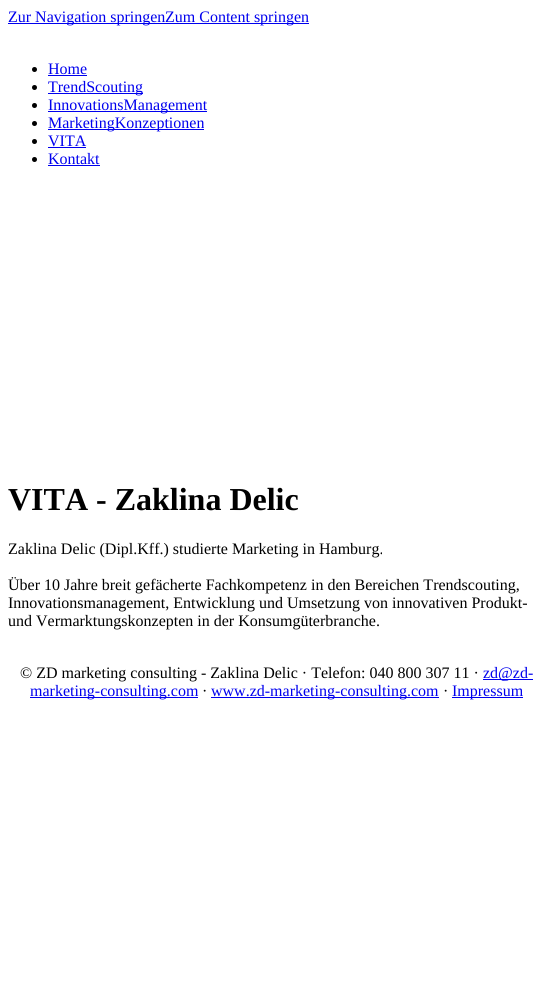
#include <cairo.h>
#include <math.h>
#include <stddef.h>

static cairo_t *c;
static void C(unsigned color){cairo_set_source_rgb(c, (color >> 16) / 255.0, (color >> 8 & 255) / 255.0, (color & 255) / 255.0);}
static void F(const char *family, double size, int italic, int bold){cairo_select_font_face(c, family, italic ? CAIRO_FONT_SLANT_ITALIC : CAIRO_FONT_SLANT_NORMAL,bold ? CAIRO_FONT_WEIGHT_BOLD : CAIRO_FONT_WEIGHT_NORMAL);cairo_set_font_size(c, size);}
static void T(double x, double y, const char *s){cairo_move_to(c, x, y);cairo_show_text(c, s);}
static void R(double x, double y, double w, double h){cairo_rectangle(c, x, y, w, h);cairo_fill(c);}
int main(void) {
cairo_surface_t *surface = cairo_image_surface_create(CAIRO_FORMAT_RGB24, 553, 998);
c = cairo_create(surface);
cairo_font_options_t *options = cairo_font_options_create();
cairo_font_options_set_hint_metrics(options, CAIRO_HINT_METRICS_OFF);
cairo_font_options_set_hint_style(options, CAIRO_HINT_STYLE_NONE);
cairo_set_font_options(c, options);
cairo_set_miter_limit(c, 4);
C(0xffffff);
cairo_paint(c);
C(0x0000ee);
R(8,23,157,1);
F("Liberation Serif",16,0,0);
T(8,22,"Zur Navigation springen");
R(165,23,144,1);
T(165,22,"Zum Content springen");
C(0x000000);
cairo_new_path(c);
cairo_arc(c,34.5,69.5,2.5,0,2 * M_PI);
cairo_fill(c);
C(0x0000ee);
T(48,74,"Home");
R(48,75,39,1);
C(0x000000);
cairo_new_path(c);
cairo_arc(c,34.5,87.5,2.5,0,2 * M_PI);
cairo_fill(c);
C(0x0000ee);
R(48,93,95,1);
T(48,92,"TrendScouting");
C(0x000000);
cairo_new_path(c);
cairo_arc(c,34.5,105.5,2.5,0,2 * M_PI);
cairo_fill(c);
C(0x0000ee);
R(48,111,159,1);
T(48,110,"InnovationsManagement");
C(0x000000);
cairo_new_path(c);
cairo_arc(c,34.5,123.5,2.5,0,2 * M_PI);
cairo_fill(c);
C(0x0000ee);
R(48,129,156,1);
T(48,128,"MarketingKonzeptionen");
C(0x000000);
cairo_new_path(c);
cairo_arc(c,34.5,141.5,2.5,0,2 * M_PI);
cairo_fill(c);
C(0x0000ee);
T(48,146,"VITA");
R(48,147,38,1);
C(0x000000);
cairo_new_path(c);
cairo_arc(c,34.5,159.5,2.5,0,2 * M_PI);
cairo_fill(c);
C(0x0000ee);
T(48,164,"Kontakt");
R(48,165,52,1);
F("Liberation Serif",32,0,1);
C(0x000000);
T(8,510,"VITA - Zaklina Delic");
F("Liberation Serif",16,0,0);
T(8,554,"Zaklina Delic (Dipl.Kff.) studierte Marketing in Hamburg.");
T(8,590,"Über 10 Jahre breit gefächerte Fachkompetenz in den Bereichen Trendscouting,");
T(8,608,"Innovationsmanagement, Entwicklung und Umsetzung von innovativen Produkt-");
T(8,626,"und Vermarktungskonzepten in der Konsumgüterbranche.");
T(20,678,"© ZD marketing consulting - Zaklina Delic · Telefon: 040 800 307 11 ·");
C(0x0000ee);
R(483,679,50,1);
T(483,678,"zd@zd-");
R(30,697,168,1);
T(30,696,"marketing-consulting.com");
C(0x000000);
T(202,696,"·");
C(0x0000ee);
R(211,697,228,1);
T(211,696,"www.zd-marketing-consulting.com");
C(0x000000);
T(443,696,"·");
C(0x0000ee);
R(452,697,71,1);
T(452,696,"Impressum");
cairo_surface_write_to_png(surface, "o.png");
cairo_font_options_destroy(options);
cairo_destroy(c);
cairo_surface_destroy(surface);
return 0;
}
